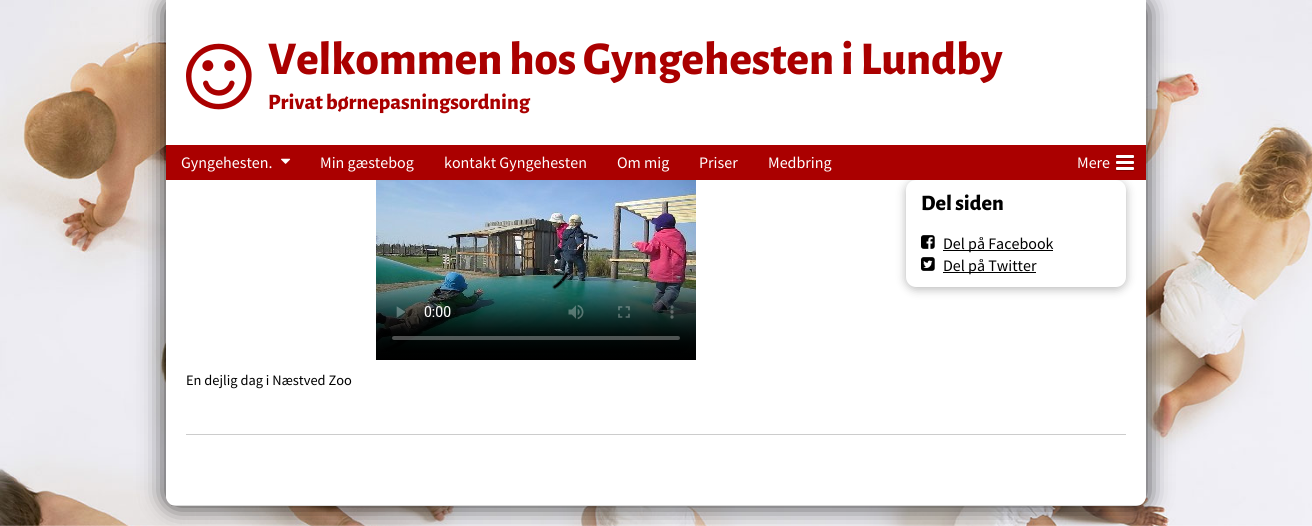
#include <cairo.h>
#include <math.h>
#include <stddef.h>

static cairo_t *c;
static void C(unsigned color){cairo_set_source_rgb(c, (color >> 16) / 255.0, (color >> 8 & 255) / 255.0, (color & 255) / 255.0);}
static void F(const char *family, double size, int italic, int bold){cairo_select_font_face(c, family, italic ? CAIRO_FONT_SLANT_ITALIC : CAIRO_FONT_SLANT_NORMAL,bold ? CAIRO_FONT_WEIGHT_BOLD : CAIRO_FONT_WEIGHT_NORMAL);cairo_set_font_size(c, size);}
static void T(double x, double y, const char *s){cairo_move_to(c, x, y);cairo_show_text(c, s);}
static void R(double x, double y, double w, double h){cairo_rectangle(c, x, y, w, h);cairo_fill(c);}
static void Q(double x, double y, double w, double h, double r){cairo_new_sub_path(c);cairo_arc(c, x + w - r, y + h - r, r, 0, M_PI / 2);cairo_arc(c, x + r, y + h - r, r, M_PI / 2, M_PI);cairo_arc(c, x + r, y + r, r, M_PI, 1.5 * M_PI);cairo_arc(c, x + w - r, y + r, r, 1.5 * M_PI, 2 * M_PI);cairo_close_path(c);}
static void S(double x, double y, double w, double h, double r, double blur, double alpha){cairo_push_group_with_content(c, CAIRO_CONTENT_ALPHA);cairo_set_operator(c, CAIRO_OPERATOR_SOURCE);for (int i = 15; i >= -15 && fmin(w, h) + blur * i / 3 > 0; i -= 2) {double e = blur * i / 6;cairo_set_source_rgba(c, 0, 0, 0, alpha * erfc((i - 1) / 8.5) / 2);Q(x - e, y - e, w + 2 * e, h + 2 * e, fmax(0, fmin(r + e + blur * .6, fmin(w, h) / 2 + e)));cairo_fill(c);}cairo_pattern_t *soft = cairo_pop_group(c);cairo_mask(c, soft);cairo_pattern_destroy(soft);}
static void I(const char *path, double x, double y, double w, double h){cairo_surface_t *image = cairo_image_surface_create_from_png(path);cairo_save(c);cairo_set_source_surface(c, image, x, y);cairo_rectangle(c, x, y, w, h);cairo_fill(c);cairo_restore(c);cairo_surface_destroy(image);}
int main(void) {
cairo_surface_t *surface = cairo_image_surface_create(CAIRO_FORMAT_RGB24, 1312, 526);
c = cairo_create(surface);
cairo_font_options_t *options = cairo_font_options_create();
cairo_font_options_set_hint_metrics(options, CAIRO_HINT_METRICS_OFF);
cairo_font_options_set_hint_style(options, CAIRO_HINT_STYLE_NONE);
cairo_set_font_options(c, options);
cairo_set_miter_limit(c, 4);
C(0xffffff);
cairo_paint(c);
I("1.png",0,0,1312,526);
C(0x000000);
S(166,0,980,506,10,12,.8);
C(0xffffff);
cairo_new_path(c);
cairo_move_to(c,166,0);
cairo_line_to(c,1146,0);
cairo_line_to(c,1146,496);
cairo_curve_to(c,1146,501.5,1141.5,506,1136,506);
cairo_line_to(c,176,506);
cairo_curve_to(c,170.5,506,166,501.5,166,496);
cairo_close_path(c);
cairo_fill(c);
cairo_set_source_rgba(c,0,0,0,0.15);
R(171,505,970,1);
I("2.png",186,43,66,67);
F("Alegreya Sans ExtraBold",47,0,0);
C(0xaa0000);
T(268,74,"Velkommen hos Gyngehesten i Lundby");
F("Alegreya Sans ExtraBold",22,0,0);
T(268,109,"Privat børnepasningsordning");
C(0x000000);
S(906,182,220,107,10,5,.29);
C(0xaa0000);
R(166,145,980,35);
F("Source Sans Pro",16,0,0);
C(0xffffff);
T(181,168,"Gyngehesten.");
I("3.png",281,158,10,6);
T(320,168,"Min gæstebog");
T(444,168,"kontakt Gyngehesten");
T(617,168,"Om mig");
T(699,168,"Priser");
T(768,168,"Medbring");
T(1077,168,"Mere");
C(0x800000);
cairo_new_path(c);
cairo_move_to(c,1116,157);
cairo_curve_to(c,1116,159.5,1117,159,1119.5,159);
cairo_line_to(c,1130.5,159);
cairo_curve_to(c,1133,159,1134,159.5,1134,157);
cairo_curve_to(c,1134,157.5,1133.5,158,1133,158);
cairo_line_to(c,1117,158);
cairo_curve_to(c,1116.5,158,1116,157.5,1116,157);
cairo_close_path(c);
cairo_fill(c);
C(0xffffff);
Q(1116,155,18,3,1);
cairo_fill(c);
C(0x800000);
cairo_new_path(c);
cairo_move_to(c,1116,163);
cairo_curve_to(c,1116,165.5,1117,165,1119.5,165);
cairo_line_to(c,1130.5,165);
cairo_curve_to(c,1133,165,1134,165.5,1134,163);
cairo_curve_to(c,1134,163.5,1133.5,164,1133,164);
cairo_line_to(c,1117,164);
cairo_curve_to(c,1116.5,164,1116,163.5,1116,163);
cairo_close_path(c);
cairo_fill(c);
C(0xffffff);
Q(1116,161,18,3,1);
cairo_fill(c);
C(0x800000);
cairo_new_path(c);
cairo_move_to(c,1116,169);
cairo_curve_to(c,1116,171.5,1117,171,1119.5,171);
cairo_line_to(c,1130.5,171);
cairo_curve_to(c,1133,171,1134,171.5,1134,169);
cairo_curve_to(c,1134,169.5,1133.5,170,1133,170);
cairo_line_to(c,1117,170);
cairo_curve_to(c,1116.5,170,1116,169.5,1116,169);
cairo_close_path(c);
cairo_fill(c);
C(0xffffff);
Q(1116,167,18,3,1);
cairo_fill(c);
Q(906,180,220,107,10);
cairo_fill(c);
F("Alegreya Sans ExtraBold",22,0,0);
C(0x000000);
T(921,210,"Del siden");
I("4.png",921,235,14,14);
R(943,250,110,1);
F("Source Sans Pro",16,0,0);
T(943,249,"Del på Facebook");
I("5.png",921,257,14,14);
R(943,272,93,1);
T(943,271,"Del på Twitter");
I("6.png",376,180,320,180);
F("Source Sans Pro",14.4,0,0);
T(186,385,"En dejlig dag i Næstved Zoo");
C(0xffffff);
cairo_new_path(c);
cairo_move_to(c,166,434);
cairo_line_to(c,1146,434);
cairo_line_to(c,1146,495);
cairo_curve_to(c,1146,500.5,1141.5,505,1136,505);
cairo_line_to(c,176,505);
cairo_curve_to(c,170.5,505,166,500.5,166,495);
cairo_close_path(c);
cairo_fill(c);
C(0xcccccc);
R(186,434,940,1);
cairo_surface_write_to_png(surface, "o.png");
cairo_font_options_destroy(options);
cairo_destroy(c);
cairo_surface_destroy(surface);
return 0;
}
